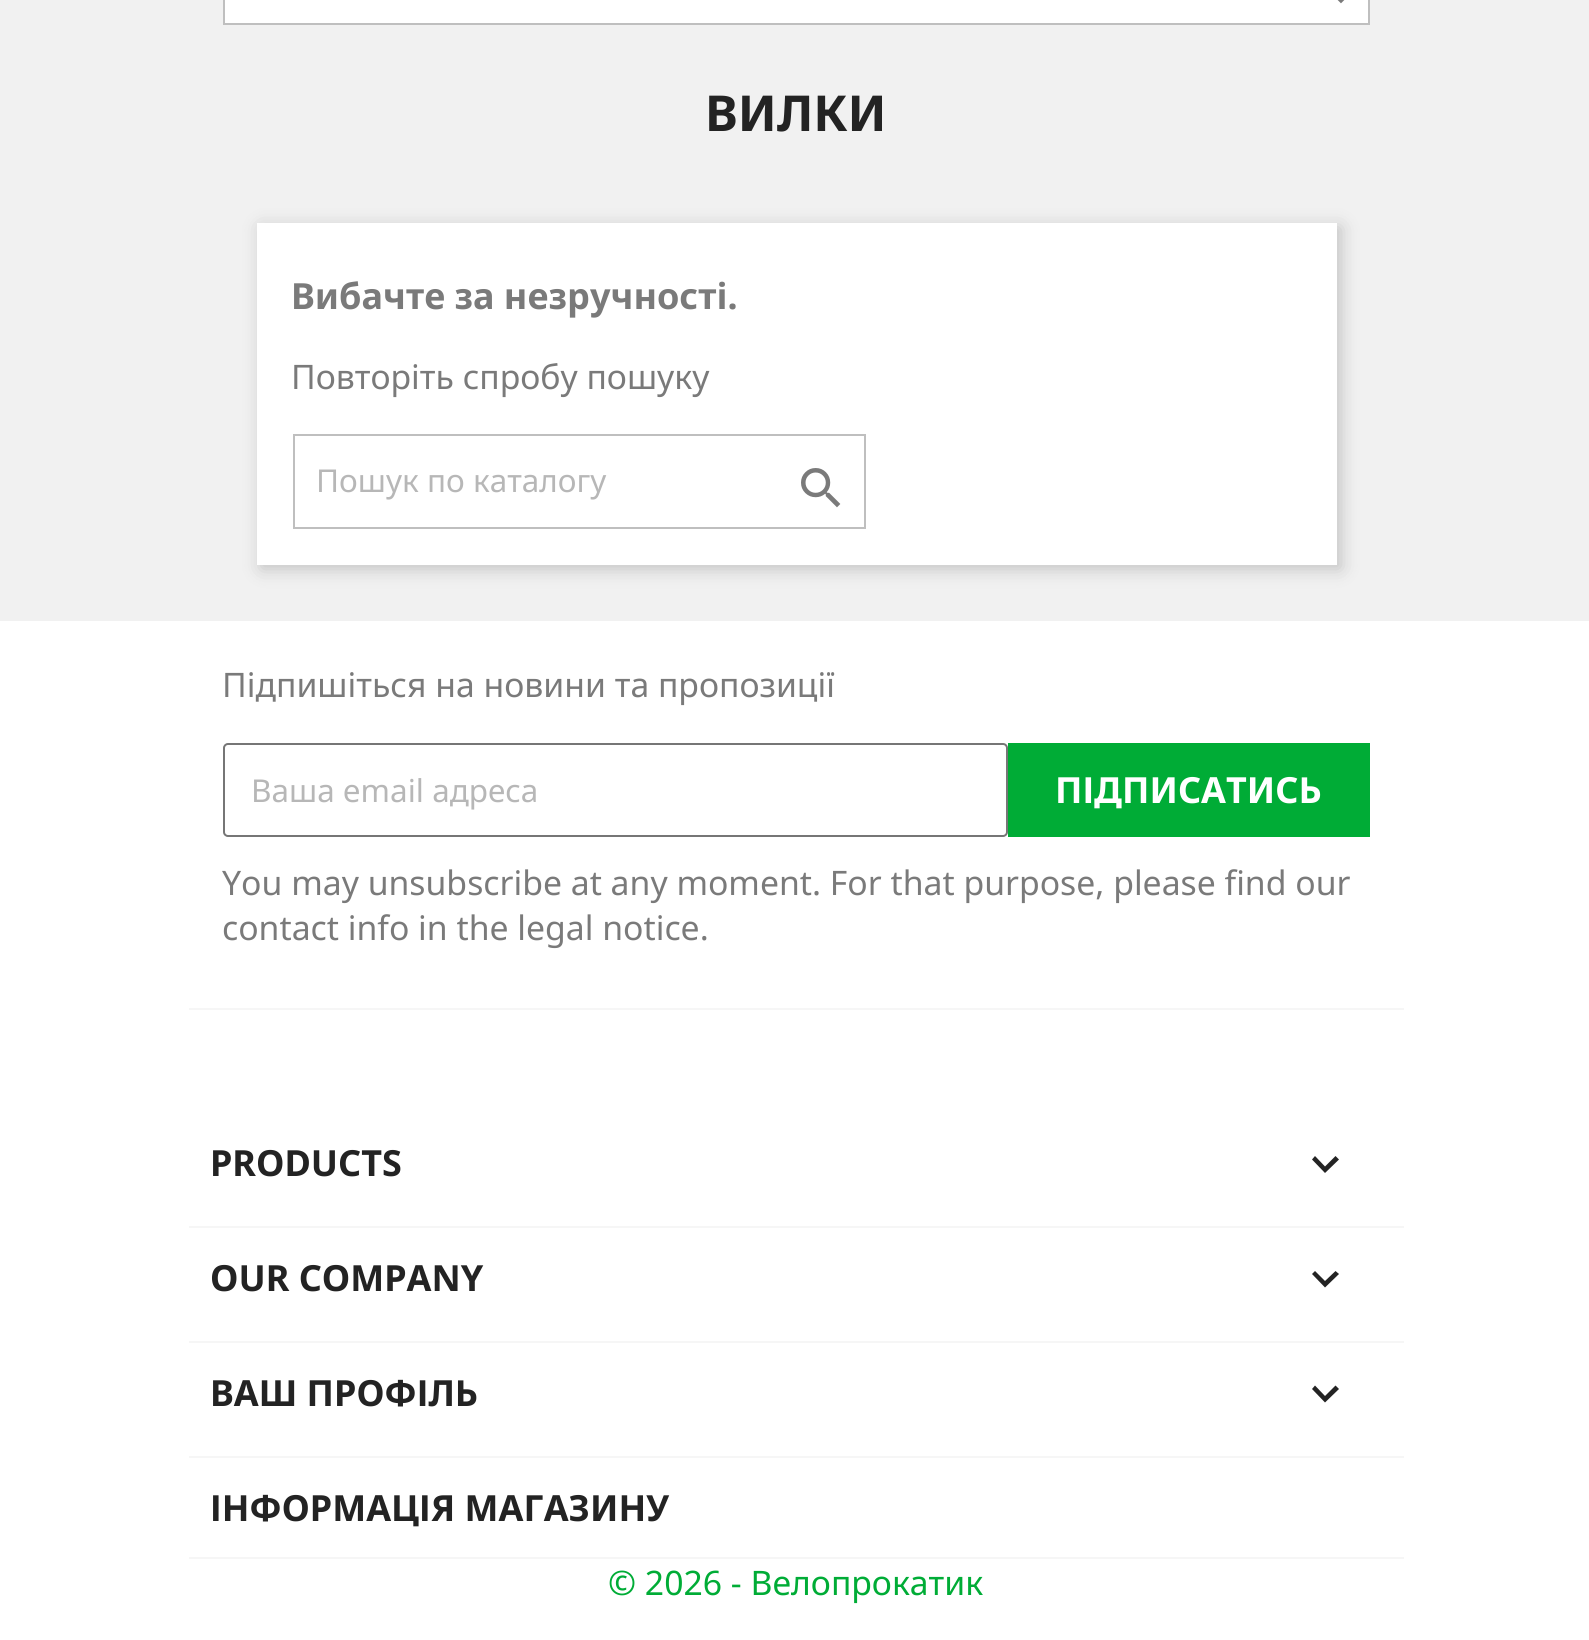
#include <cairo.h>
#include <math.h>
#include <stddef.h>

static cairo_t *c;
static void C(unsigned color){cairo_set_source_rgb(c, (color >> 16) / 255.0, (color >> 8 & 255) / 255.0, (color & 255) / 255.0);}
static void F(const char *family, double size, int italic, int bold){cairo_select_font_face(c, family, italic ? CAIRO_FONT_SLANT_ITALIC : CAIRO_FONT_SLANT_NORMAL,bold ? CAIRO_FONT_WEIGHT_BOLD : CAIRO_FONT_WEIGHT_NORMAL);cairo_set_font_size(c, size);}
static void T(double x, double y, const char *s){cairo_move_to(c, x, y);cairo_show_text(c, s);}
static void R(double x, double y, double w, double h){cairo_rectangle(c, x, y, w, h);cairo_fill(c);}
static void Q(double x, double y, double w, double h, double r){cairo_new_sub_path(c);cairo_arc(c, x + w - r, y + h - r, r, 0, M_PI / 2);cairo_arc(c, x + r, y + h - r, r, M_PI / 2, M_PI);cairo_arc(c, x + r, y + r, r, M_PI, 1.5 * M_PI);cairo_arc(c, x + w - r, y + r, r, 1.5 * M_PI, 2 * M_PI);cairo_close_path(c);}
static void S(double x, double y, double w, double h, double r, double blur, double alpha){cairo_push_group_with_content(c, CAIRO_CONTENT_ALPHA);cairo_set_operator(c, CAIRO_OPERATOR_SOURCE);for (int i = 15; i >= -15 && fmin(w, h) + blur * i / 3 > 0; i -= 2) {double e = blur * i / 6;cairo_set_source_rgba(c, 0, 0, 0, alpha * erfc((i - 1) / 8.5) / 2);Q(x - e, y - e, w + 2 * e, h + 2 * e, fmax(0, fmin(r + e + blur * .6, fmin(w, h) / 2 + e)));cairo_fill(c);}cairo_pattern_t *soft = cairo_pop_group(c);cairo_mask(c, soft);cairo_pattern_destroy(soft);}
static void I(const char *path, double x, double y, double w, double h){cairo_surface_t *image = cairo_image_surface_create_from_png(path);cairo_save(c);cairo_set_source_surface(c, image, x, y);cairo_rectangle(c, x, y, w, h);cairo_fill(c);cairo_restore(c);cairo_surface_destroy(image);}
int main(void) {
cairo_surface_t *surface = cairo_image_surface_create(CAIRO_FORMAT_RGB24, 1589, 1640);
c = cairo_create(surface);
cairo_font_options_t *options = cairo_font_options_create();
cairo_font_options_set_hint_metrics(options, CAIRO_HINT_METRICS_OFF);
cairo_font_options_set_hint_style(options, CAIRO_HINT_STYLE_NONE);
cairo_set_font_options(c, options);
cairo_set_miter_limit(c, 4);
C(0xffffff);
cairo_paint(c);
C(0xf1f1f1);
R(0,0,1589,621);
C(0xffffff);
cairo_rectangle(c,224,-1,1145,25);
cairo_fill_preserve(c);
C(0xbfbfbf);
cairo_stroke(c);
I("1.png",1337,0,8,4);
F("Noto Sans",49.5,0,1);
C(0x232323);
T(705,131,"ВИЛКИ");
C(0x000000);
S(261,227,1080,342,0,9,.2);
C(0xffffff);
R(257,223,1080,342);
F("Noto Sans",36,0,1);
C(0x7a7a7a);
T(291,309,"Вибачте за незручності.");
F("Noto Sans",33.75,0,0);
T(291,389,"Повторіть спробу пошуку");
cairo_rectangle(c,294,435,571,93);
C(0xbfbfbf);
cairo_stroke(c);
F("Noto Sans",31.5,0,0);
C(0xb7b7b7);
T(316,492,"Пошук по каталогу");
I("2.png",801,468,40,40);
C(0xf6f6f6);
R(189,1008,1215,2);
F("Noto Sans",33.75,0,0);
C(0x7a7a7a);
T(222,697,"Підпишіться на новини та пропозиції");
Q(224,744,783,92,4);
C(0x767676);
cairo_stroke(c);
F("Noto Sans",31.5,0,0);
C(0xb7b7b7);
T(251,802,"Ваша email адреса");
C(0x00ac36);
R(1008,743,362,94);
F("Noto Sans",36,0,1);
C(0xffffff);
T(1055,803,"ПІДПИСАТИСЬ");
F("Noto Sans",33.75,0,0);
C(0x7a7a7a);
T(222,895,"You may unsubscribe at any moment. For that purpose, please find our");
T(222,940,"contact info in the legal notice.");
C(0xf6f6f6);
R(189,1226,1215,2);
F("Noto Sans",36,0,1);
C(0x232323);
T(210,1176,"PRODUCTS");
cairo_new_path(c);
cairo_move_to(c,1315,1156);
cairo_line_to(c,1325,1166.5);
cairo_line_to(c,1335.5,1156);
cairo_line_to(c,1339,1159.5);
cairo_line_to(c,1325,1173);
cairo_line_to(c,1312,1159.5);
cairo_close_path(c);
cairo_fill(c);
C(0xf6f6f6);
R(189,1341,1215,2);
C(0x232323);
T(210,1291,"OUR COMPANY");
cairo_new_path(c);
cairo_move_to(c,1315,1271);
cairo_line_to(c,1325,1281);
cairo_line_to(c,1335.5,1271);
cairo_line_to(c,1339,1274);
cairo_line_to(c,1325,1287.5);
cairo_line_to(c,1312,1274);
cairo_close_path(c);
cairo_fill(c);
C(0xf6f6f6);
R(189,1456,1215,2);
C(0x232323);
T(210,1406,"ВАШ ПРОФІЛЬ");
cairo_new_path(c);
cairo_move_to(c,1315,1385.5);
cairo_line_to(c,1325,1396);
cairo_line_to(c,1335.5,1385.5);
cairo_line_to(c,1339,1389);
cairo_line_to(c,1325,1402.5);
cairo_line_to(c,1312,1389);
cairo_close_path(c);
cairo_fill(c);
C(0xf6f6f6);
R(189,1557,1215,2);
C(0x232323);
T(210,1521,"ІНФОРМАЦІЯ МАГАЗИНУ");
F("Noto Sans",33.75,0,0);
C(0x00ac36);
T(608,1595,"© 2026 - Велопрокатик");
cairo_surface_write_to_png(surface, "o.png");
cairo_font_options_destroy(options);
cairo_destroy(c);
cairo_surface_destroy(surface);
return 0;
}
